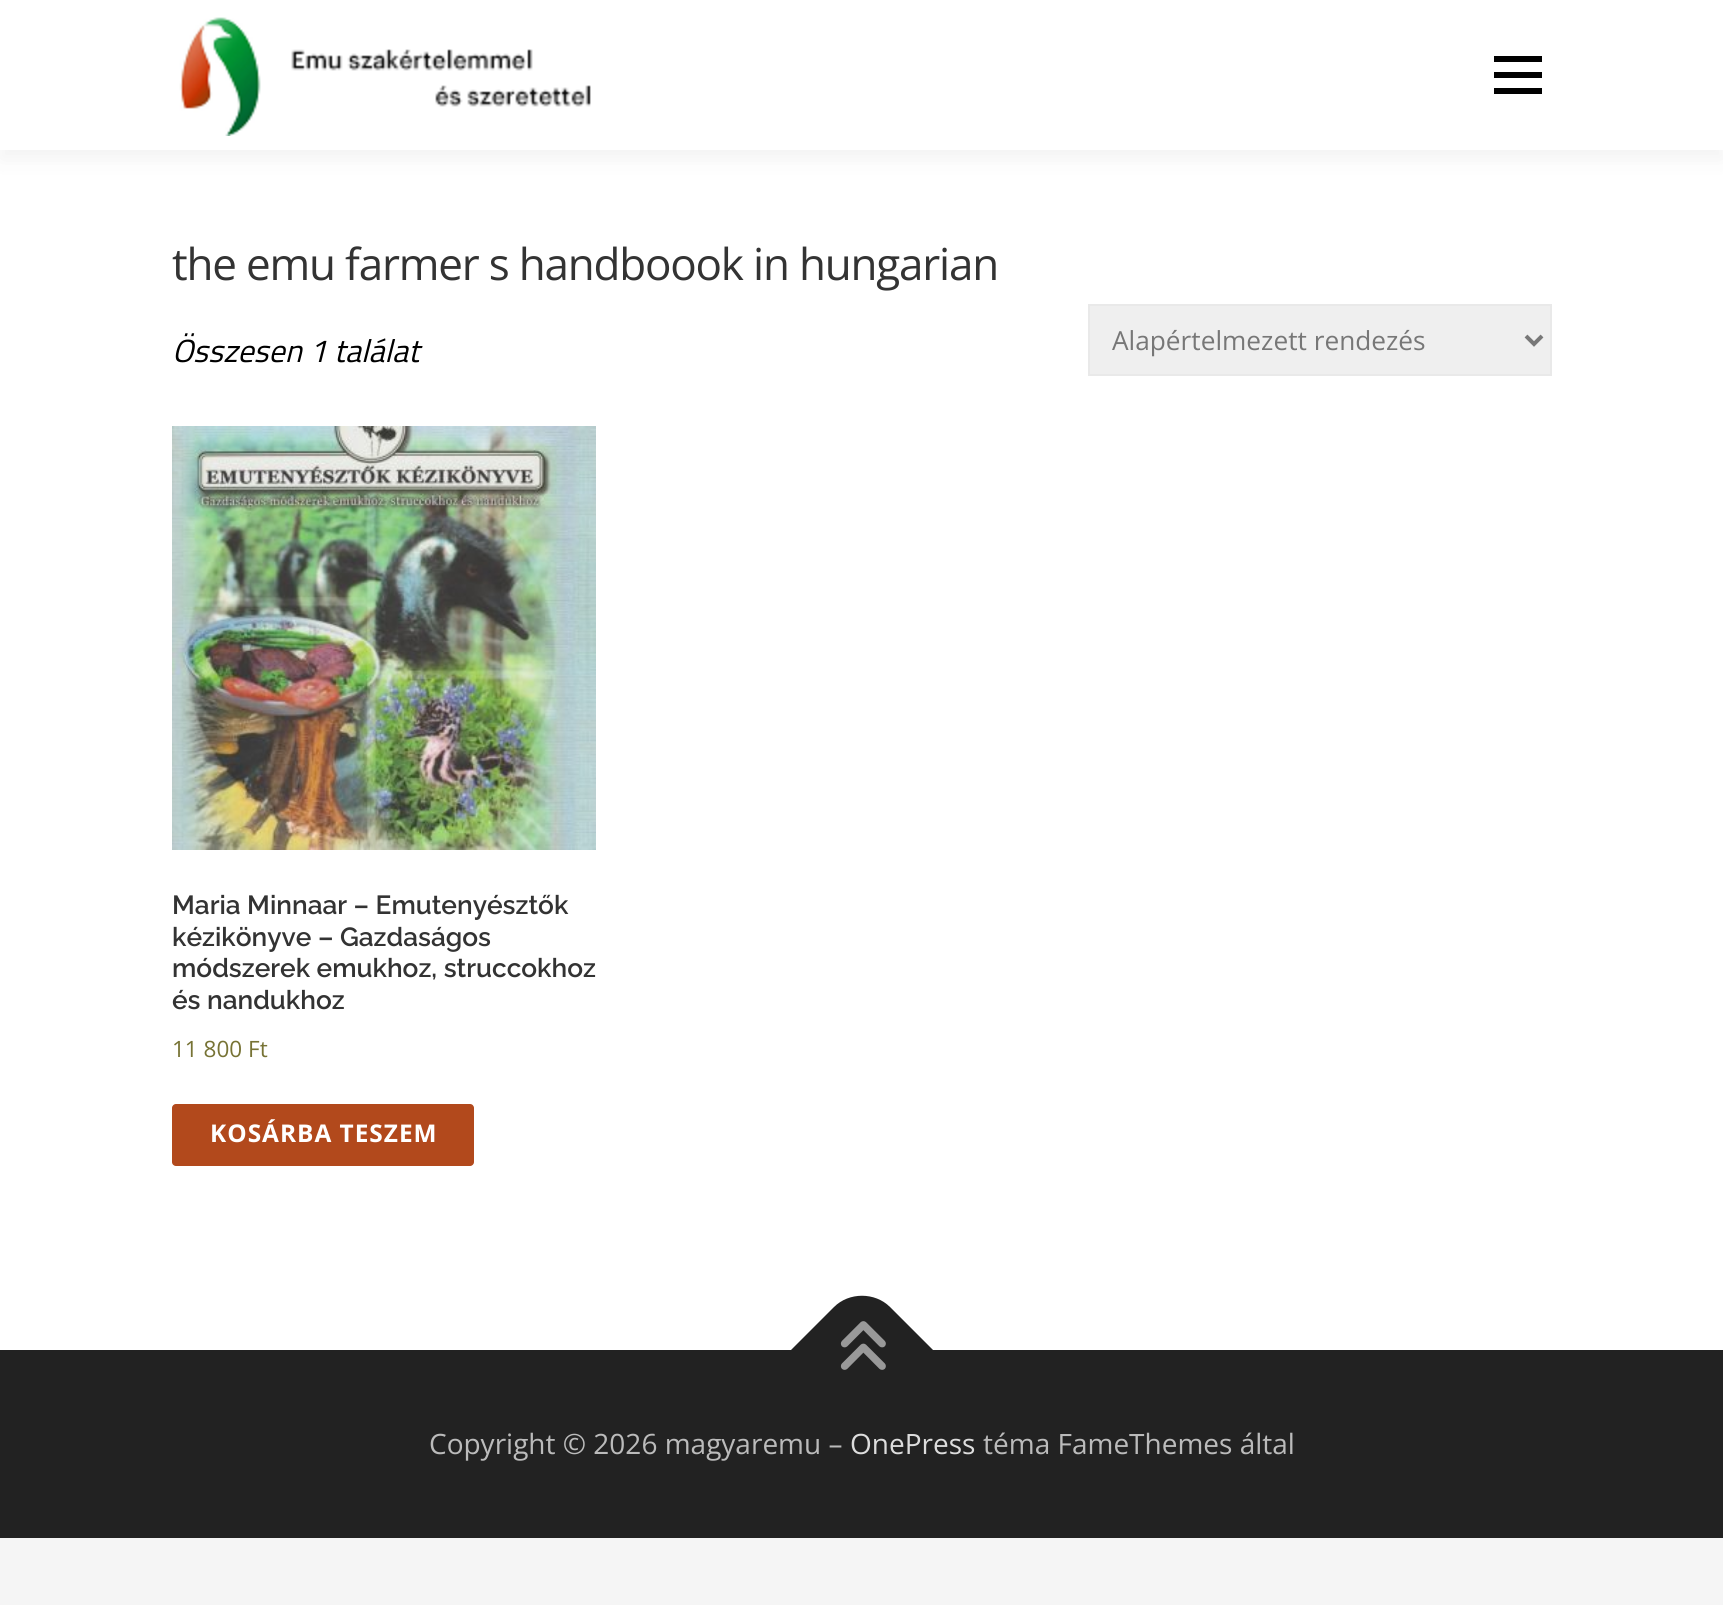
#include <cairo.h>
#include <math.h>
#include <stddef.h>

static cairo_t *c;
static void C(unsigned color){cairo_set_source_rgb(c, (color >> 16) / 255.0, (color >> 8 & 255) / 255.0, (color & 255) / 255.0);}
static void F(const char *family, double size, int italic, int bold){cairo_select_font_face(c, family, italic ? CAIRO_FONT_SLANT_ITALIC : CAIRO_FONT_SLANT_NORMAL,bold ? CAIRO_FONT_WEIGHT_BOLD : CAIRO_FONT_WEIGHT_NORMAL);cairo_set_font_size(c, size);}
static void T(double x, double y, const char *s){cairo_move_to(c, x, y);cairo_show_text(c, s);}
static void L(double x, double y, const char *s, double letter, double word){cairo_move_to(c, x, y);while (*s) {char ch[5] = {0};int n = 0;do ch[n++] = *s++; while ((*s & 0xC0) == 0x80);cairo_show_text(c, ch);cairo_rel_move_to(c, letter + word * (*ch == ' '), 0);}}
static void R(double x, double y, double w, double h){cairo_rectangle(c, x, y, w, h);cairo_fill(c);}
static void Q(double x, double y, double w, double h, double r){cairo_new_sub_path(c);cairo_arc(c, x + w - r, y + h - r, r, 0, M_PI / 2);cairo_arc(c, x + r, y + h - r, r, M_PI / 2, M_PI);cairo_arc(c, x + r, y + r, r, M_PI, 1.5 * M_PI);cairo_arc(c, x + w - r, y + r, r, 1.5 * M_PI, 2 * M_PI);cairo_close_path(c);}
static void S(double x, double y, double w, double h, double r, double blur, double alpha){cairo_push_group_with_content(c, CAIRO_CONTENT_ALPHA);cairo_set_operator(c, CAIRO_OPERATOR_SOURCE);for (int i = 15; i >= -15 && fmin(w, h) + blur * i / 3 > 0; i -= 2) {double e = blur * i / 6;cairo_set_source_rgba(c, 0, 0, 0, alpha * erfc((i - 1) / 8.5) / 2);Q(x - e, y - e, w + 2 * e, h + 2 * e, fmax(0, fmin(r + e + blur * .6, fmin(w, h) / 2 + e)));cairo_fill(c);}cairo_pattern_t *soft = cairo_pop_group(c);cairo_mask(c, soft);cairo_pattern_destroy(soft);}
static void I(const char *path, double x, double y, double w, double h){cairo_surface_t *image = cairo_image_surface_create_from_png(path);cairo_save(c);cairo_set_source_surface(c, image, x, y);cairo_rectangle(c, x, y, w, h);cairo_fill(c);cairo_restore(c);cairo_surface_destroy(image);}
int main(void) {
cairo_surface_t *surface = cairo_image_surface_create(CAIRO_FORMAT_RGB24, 1723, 1605);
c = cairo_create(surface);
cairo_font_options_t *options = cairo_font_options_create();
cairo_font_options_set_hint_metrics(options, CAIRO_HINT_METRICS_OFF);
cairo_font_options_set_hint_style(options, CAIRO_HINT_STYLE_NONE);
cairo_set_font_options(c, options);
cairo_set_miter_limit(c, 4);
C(0xf5f5f5);
cairo_paint(c);
C(0xffffff);
R(0,150,1723,1200);
C(0x323232);
S(0,10,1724,150,0,10,.06);
C(0xffffff);
R(0,0,1723,150);
I("1.png",179,17,412,119);
C(0x000000);
R(1494,72,48,6);
R(1494,56,48,6);
R(1494,88,48,6);
F("Open Sans",44,0,0);
C(0x333333);
L(172,280,"the emu farmer s handboook in hungarian",-1.2,0);
F("Titillium Web",32,1,0);
C(0x000000);
T(172,362,"Összesen 1 találat");
C(0xefefef);
cairo_rectangle(c,1089,305,462,70);
cairo_fill_preserve(c);
C(0xe9e9e9);
cairo_stroke(c);
cairo_new_path(c);
cairo_move_to(c,1526,336);
cairo_line_to(c,1534,344);
cairo_line_to(c,1542,336);
C(0x777777);
cairo_set_line_width(c,4);
cairo_stroke(c);
F("Open Sans",26.25,0,0);
T(1112,350,"Alapértelmezett rendezés");
I("2.png",172,426,424,424);
F("Raleway SemiBold",26.25,0,0);
C(0x333333);
T(172,914,"Maria Minnaar – Emutenyésztők");
T(172,946,"kézikönyve – Gazdaságos");
T(172,977,"módszerek emukhoz, struccokhoz");
T(172,1009,"és nandukhoz");
F("Open Sans",22.5,0,0);
C(0x777335);
T(172,1057,"11 800 Ft");
C(0xb2491c);
Q(172,1104,302,62,4);
cairo_fill(c);
F("Open Sans",24.4,0,1);
C(0xffffff);
L(210,1142,"KOSÁRBA TESZEM",1,0);
C(0x222222);
R(0,1350,1723,188);
cairo_new_path(c);
cairo_move_to(c,791,1350);
cairo_line_to(c,834,1307);
cairo_curve_to(c,849,1292,875,1292,890,1307);
cairo_line_to(c,933,1350);
cairo_line_to(c,862,1421);
cairo_close_path(c);
cairo_fill(c);
I("3.png",840,1321,46,49);
F("Open Sans",28,0,0);
C(0xbbbbbb);
T(429,1454,"Copyright © 2026 magyaremu –");
C(0xdddddd);
T(850,1454,"OnePress");
C(0xbbbbbb);
T(983,1454,"téma FameThemes által");
cairo_surface_write_to_png(surface, "o.png");
cairo_font_options_destroy(options);
cairo_destroy(c);
cairo_surface_destroy(surface);
return 0;
}
